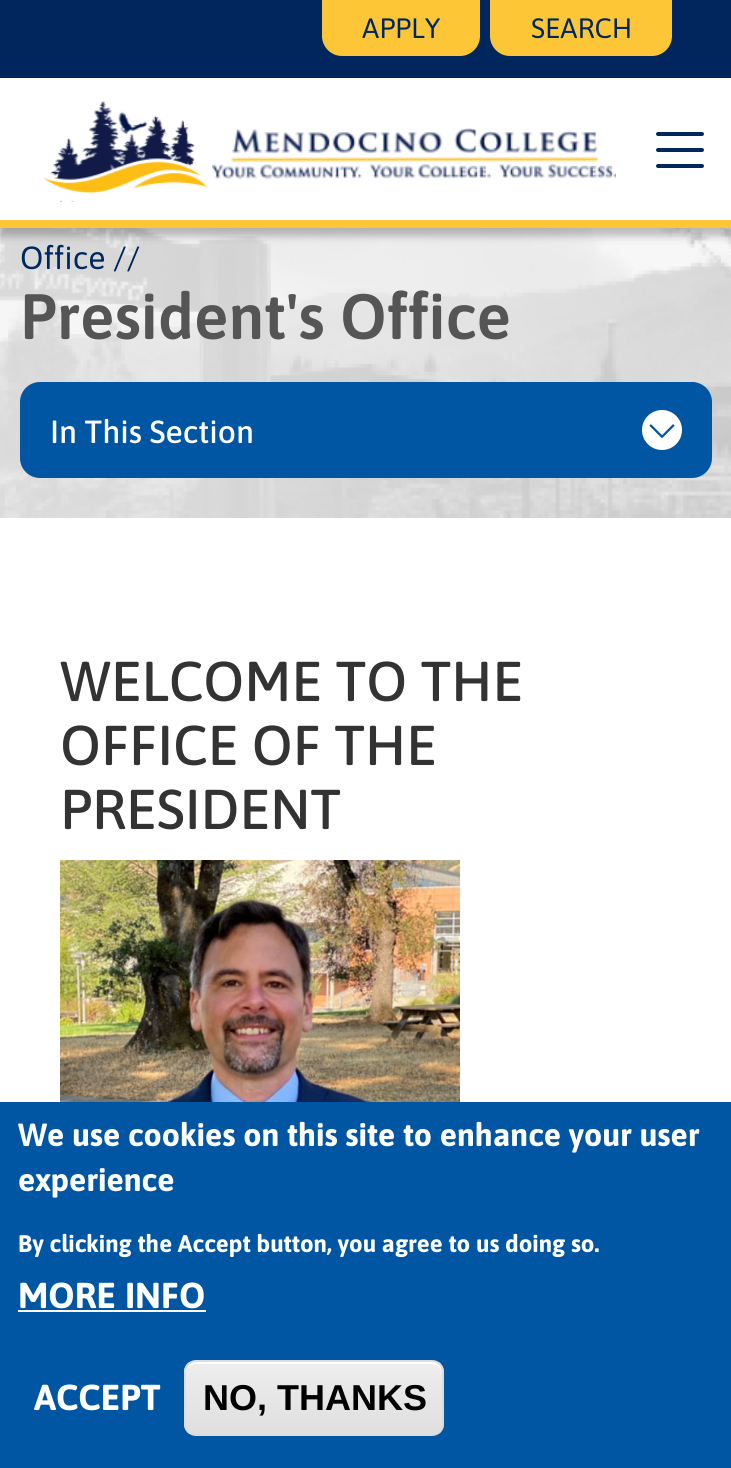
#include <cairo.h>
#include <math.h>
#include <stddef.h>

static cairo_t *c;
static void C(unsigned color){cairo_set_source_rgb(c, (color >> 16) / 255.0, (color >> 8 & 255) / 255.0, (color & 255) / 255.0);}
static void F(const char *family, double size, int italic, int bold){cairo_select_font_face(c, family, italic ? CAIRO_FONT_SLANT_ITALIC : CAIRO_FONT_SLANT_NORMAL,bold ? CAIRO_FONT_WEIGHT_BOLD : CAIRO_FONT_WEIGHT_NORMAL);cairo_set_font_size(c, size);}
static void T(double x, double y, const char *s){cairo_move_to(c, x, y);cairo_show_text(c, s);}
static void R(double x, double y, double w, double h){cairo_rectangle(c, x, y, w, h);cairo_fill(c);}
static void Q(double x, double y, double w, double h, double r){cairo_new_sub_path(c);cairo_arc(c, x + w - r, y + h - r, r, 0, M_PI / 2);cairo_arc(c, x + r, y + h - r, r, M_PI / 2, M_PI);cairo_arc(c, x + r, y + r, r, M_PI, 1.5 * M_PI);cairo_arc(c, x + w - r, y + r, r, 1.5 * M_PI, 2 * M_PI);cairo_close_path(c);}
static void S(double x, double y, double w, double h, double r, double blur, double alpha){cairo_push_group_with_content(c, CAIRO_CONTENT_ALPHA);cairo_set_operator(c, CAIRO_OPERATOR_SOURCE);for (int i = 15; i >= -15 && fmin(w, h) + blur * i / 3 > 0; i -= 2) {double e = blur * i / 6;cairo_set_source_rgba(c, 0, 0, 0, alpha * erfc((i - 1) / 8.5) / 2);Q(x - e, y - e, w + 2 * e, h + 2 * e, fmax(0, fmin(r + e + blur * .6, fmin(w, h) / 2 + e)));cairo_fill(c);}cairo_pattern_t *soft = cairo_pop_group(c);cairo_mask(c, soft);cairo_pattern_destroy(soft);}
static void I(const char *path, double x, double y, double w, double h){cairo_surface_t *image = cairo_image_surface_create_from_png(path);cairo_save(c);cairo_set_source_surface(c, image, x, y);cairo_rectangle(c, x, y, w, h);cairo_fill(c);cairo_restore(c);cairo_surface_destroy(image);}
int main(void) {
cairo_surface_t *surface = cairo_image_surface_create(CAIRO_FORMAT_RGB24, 731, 1468);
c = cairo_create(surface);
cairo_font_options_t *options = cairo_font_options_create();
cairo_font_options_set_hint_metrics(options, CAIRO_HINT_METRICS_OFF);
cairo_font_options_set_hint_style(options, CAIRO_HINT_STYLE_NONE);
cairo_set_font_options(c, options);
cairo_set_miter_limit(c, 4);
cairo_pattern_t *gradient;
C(0xffffff);
cairo_paint(c);
I("4.png",0,228,731,290);
C(0x000000);
S(0,86,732,150,0,4,.25);
C(0x00275d);
R(0,0,731,78);
C(0xfdc636);
cairo_new_path(c);
cairo_move_to(c,322,0);
cairo_line_to(c,480,0);
cairo_line_to(c,480,36);
cairo_curve_to(c,480,47,471,56,460,56);
cairo_line_to(c,342,56);
cairo_curve_to(c,331,56,322,47,322,36);
cairo_close_path(c);
cairo_fill(c);
F("Asap",28,0,0);
C(0x00275d);
T(362,38,"APPLY");
C(0xfdc636);
cairo_new_path(c);
cairo_move_to(c,490,0);
cairo_line_to(c,672,0);
cairo_line_to(c,672,36);
cairo_curve_to(c,672,47,663,56,652,56);
cairo_line_to(c,510,56);
cairo_curve_to(c,499,56,490,47,490,36);
cairo_close_path(c);
cairo_fill(c);
C(0x00275d);
T(531,38,"SEARCH");
C(0xffffff);
R(0,79,731,141);
C(0xfdc636);
R(0,220,731,8);
I("1.png",43,101,165,101);
I("2.png",212,128,404,52);
I("3.png",656,132,48,36);
F("Asap",32,0,0);
C(0x00275d);
T(20,269,"Office //");
F("Asap SemiBold",64,0,0);
C(0x555555);
T(20,339,"President's Office");
C(0x0056a3);
Q(20,382,692,96,20);
cairo_fill(c);
F("Asap Medium",32,0,0);
C(0xffffff);
T(50,443,"In This Section");
cairo_new_path(c);
cairo_arc(c,662,430,20,0,2 * M_PI);
cairo_fill(c);
I("5.png",649,424,26,14);
F("Asap Medium",56,0,0);
C(0x333333);
T(60,701,"WELCOME TO THE");
T(60,765,"OFFICE OF THE");
T(60,829,"PRESIDENT");
I("6.png",60,860,400,242);
C(0x0056a3);
R(0,1102,731,366);
F("Asap",32,0,1);
C(0xffffff);
T(18,1146,"We use cookies on this site to enhance your user");
T(18,1191,"experience");
F("Asap",24,0,1);
T(18,1252,"By clicking the Accept button, you agree to us doing so.");
F("Asap",36,0,1);
T(18,1308,"MORE INFO");
R(18,1310,188,2);
T(34,1410,"ACCEPT");
cairo_save(c);
Q(184,1360,260,76,12);
cairo_clip(c);
gradient = cairo_pattern_create_linear(314,1362,314,1434);
cairo_pattern_add_color_stop_rgba(gradient,.05,0.929,0.929,0.929,1);
cairo_pattern_add_color_stop_rgba(gradient,1,0.875,0.875,0.875,1);
cairo_set_source(c,gradient);
cairo_pattern_destroy(gradient);
R(184,1362,260,72);
cairo_restore(c);
cairo_new_path(c);
cairo_move_to(c,196,1364);
cairo_line_to(c,432,1364);
cairo_curve_to(c,438,1364,442,1368,442,1374);
cairo_line_to(c,442,1372);
cairo_curve_to(c,442,1366,438,1362,432,1362);
cairo_line_to(c,196,1362);
cairo_curve_to(c,190,1362,186,1366,186,1372);
cairo_line_to(c,186,1374);
cairo_curve_to(c,186,1368,190,1364,196,1364);
cairo_close_path(c);
cairo_fill(c);
Q(185,1361,258,74,11);
C(0xdcdcdc);
cairo_stroke(c);
F("Liberation Sans",36,0,1);
C(0x000000);
T(203,1410,"NO, THANKS");
cairo_surface_write_to_png(surface, "o.png");
cairo_font_options_destroy(options);
cairo_destroy(c);
cairo_surface_destroy(surface);
return 0;
}
